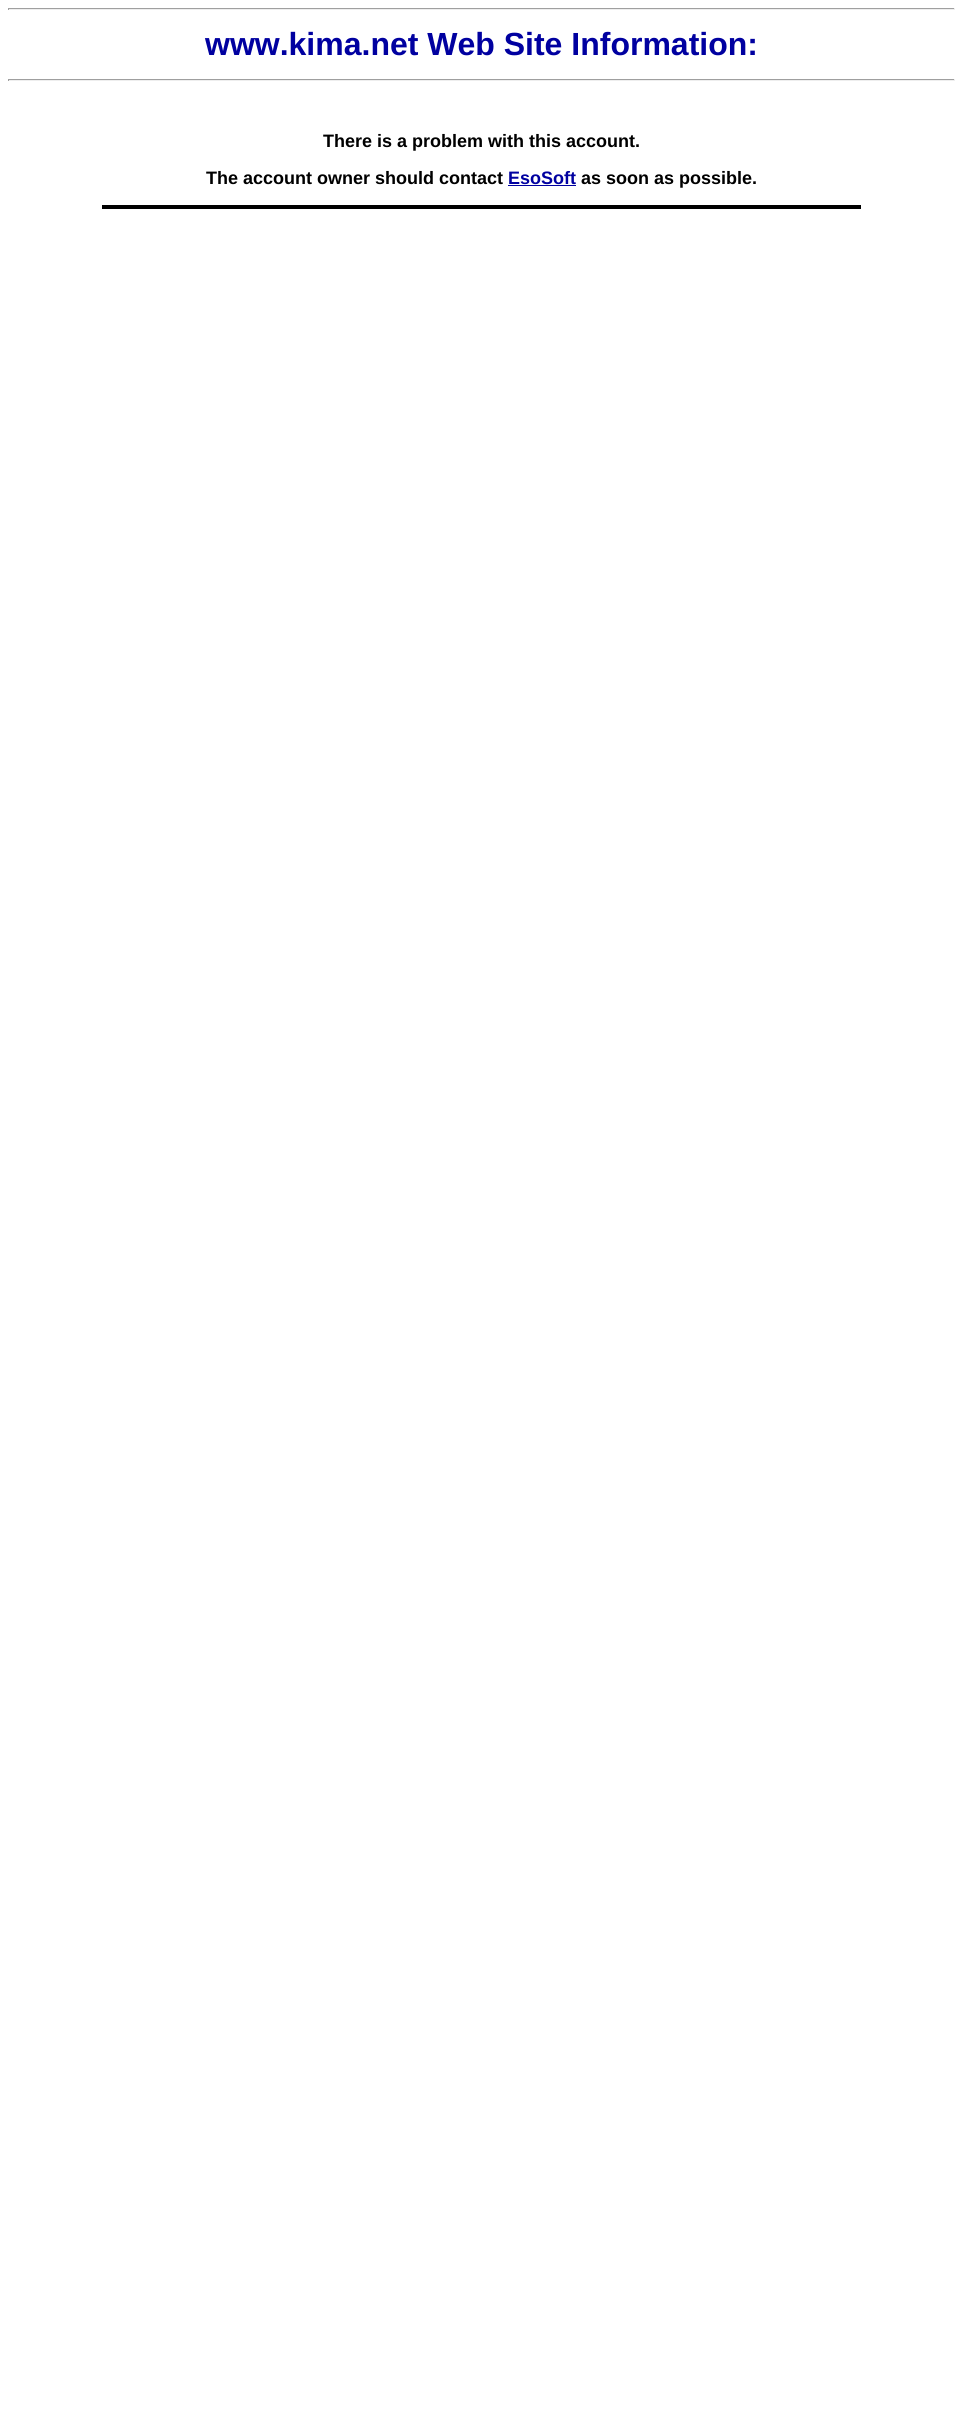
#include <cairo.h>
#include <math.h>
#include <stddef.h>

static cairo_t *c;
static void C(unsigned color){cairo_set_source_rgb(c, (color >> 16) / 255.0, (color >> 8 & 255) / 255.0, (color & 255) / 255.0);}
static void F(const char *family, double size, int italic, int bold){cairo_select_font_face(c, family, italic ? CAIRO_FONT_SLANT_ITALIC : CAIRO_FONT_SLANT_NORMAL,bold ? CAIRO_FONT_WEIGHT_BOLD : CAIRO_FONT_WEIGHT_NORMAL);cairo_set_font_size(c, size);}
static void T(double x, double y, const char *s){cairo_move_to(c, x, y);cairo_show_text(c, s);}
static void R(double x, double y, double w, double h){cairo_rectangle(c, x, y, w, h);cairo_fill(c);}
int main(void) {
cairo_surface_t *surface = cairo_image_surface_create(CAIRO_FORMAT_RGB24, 963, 2416);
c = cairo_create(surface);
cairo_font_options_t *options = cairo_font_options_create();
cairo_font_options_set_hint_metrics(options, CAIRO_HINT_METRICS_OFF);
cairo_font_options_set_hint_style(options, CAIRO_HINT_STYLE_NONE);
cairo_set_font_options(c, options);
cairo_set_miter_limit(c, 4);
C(0xffffff);
cairo_paint(c);
C(0x9f9f9f);
R(8,8,947,1);
C(0xeeeeee);
R(954,8,1,2);
R(8,9,947,1);
C(0x9f9f9f);
R(8,8,1,2);
F("Liberation Sans",32,0,1);
C(0x0000a0);
T(205,55,"www.kima.net Web Site Information:");
C(0x9f9f9f);
R(8,79,947,1);
C(0xeeeeee);
R(954,79,1,2);
R(8,80,947,1);
C(0x9f9f9f);
R(8,79,1,2);
F("Liberation Sans",18,0,1);
C(0x000000);
T(323,147,"There is a problem with this account.");
T(206,184,"The account owner should contact");
C(0x0000a0);
T(508,184,"EsoSoft");
R(508,185,68,1);
C(0x000000);
T(581,184,"as soon as possible.");
R(102,205,759,4);
cairo_surface_write_to_png(surface, "o.png");
cairo_font_options_destroy(options);
cairo_destroy(c);
cairo_surface_destroy(surface);
return 0;
}
